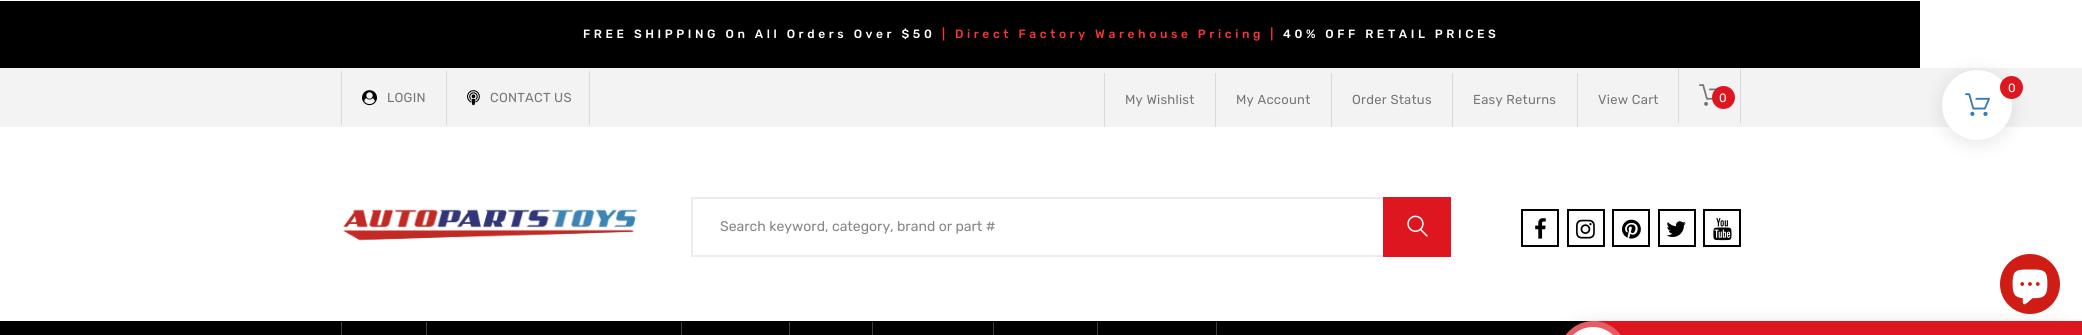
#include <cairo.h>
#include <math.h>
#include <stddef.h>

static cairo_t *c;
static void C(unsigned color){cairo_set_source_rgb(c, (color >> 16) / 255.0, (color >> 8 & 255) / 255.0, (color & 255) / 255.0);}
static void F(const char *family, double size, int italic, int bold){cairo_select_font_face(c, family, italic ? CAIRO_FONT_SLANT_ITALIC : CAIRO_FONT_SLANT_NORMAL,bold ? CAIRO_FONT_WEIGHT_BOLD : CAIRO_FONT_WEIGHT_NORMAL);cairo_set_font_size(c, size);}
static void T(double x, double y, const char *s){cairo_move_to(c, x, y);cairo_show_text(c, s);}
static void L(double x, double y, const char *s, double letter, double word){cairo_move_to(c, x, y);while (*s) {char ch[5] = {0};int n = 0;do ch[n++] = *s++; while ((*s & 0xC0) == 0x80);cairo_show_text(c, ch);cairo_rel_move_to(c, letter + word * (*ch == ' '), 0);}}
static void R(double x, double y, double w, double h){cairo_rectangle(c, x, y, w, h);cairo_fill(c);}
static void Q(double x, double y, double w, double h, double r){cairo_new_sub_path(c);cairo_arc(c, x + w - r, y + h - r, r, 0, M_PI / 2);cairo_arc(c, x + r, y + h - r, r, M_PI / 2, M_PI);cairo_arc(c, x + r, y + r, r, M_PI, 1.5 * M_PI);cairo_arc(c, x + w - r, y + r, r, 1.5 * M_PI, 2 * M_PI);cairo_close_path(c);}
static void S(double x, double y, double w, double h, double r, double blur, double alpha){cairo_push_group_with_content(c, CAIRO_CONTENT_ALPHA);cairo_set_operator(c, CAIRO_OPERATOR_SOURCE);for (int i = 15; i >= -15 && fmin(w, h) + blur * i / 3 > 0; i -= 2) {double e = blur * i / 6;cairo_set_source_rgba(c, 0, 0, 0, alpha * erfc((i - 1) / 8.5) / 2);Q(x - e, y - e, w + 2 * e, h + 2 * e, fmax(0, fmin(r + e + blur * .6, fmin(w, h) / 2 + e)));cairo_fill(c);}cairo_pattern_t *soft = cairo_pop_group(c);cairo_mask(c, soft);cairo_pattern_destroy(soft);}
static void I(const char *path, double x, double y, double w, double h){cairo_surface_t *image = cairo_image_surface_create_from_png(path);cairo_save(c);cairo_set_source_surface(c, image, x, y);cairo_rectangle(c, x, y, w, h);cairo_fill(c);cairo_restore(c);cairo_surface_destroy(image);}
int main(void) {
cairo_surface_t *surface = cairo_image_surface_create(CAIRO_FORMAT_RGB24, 2082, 335);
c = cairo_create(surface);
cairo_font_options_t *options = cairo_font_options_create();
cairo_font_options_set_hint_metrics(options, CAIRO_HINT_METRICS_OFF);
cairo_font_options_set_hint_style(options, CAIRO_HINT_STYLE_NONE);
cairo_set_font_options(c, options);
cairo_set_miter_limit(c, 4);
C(0xffffff);
cairo_paint(c);
C(0x000000);
R(0,1,1920,67);
F("Rubik Medium",12,0,0);
C(0xffffff);
L(583,38,"FREE SHIPPING On All Orders Over $50",3.6,0);
C(0xf63439);
L(942,38,"| Direct Factory Warehouse Pricing |",3.6,0);
C(0xffffff);
L(1283,38,"40% OFF RETAIL PRICES",3.6,0);
C(0xf3f3f3);
R(0,68,2082,59);
C(0x000000);
S(1942,73,70,70,35,9,.1);
C(0xffffff);
cairo_arc(c,1977,105,35,0,2 * M_PI);
cairo_fill(c);
C(0xdd161f);
cairo_arc(c,2011.5,87.5,11.5,0,2 * M_PI);
cairo_fill(c);
F("Rubik",12,0,0);
C(0xffffff);
T(2008,92,"0");
I("1.png",1965,93,25,23);
I("2.png",343,209,295,32);
cairo_rectangle(c,692,198,758,58);
C(0xececec);
cairo_stroke(c);
F("Rubik",14,0,0);
C(0x868686);
T(720,231,"Search keyword, category, brand or part #");
C(0xdd161f);
R(1383,197,68,60);
I("3.png",1407,215,21,22);
cairo_rectangle(c,1522,210,36,36);
C(0x000000);
cairo_stroke(c);
I("4.png",1535,218,11,21);
cairo_rectangle(c,1568,210,36,36);
cairo_stroke(c);
I("5.png",1576,219,19,20);
cairo_rectangle(c,1613,210,36,36);
cairo_stroke(c);
I("6.png",1622,219,19,20);
cairo_rectangle(c,1659,210,36,36);
cairo_stroke(c);
I("7.png",1666,221,20,16);
cairo_rectangle(c,1704,210,36,36);
cairo_stroke(c);
I("8.png",1713,218,19,23);
C(0xd9d9d9);
R(341,71,1,54);
I("9.png",362,90,15,16);
F("Rubik",13,0,0);
C(0x777777);
L(387,102,"LOGIN",.25,0);
C(0xd9d9d9);
R(589,71,1,54);
R(446,71,1,54);
I("10.png",467,90,13,16);
C(0x777777);
L(490,102,"CONTACT US",.25,0);
C(0xd9d9d9);
R(1104,73,1,54);
C(0x777777);
L(1125,104,"My Wishlist",.25,0);
C(0xd9d9d9);
R(1215,73,1,54);
C(0x777777);
L(1236,104,"My Account",.25,0);
C(0xd9d9d9);
R(1331,73,1,54);
C(0x777777);
L(1352,104,"Order Status",.25,0);
C(0xd9d9d9);
R(1452,73,1,54);
C(0x777777);
L(1473,104,"Easy Returns",.25,0);
C(0xd9d9d9);
R(1577,73,1,54);
C(0x777777);
L(1598,104,"View Cart",.25,0);
C(0xd9d9d9);
R(1740,68,1,55);
R(1678,68,1,55);
I("11.png",1699,84,18,22);
C(0xdd161f);
cairo_arc(c,1723.5,97.5,11.5,0,2 * M_PI);
cairo_fill(c);
F("Rubik",12,0,0);
C(0xffffff);
L(1719,102,"0",1,0);
C(0x000000);
R(0,321,1593,14);
C(0x3e3e3e);
R(341,322,1,13);
R(426,322,1,13);
R(681,322,1,13);
R(789,322,1,13);
R(872,322,1,13);
R(993,322,1,13);
R(1216,322,1,13);
R(1097,322,1,13);
C(0x000000);
S(1559,324,523,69,34.5,9,.1);
C(0xdd161f);
cairo_new_path(c);
cairo_move_to(c,1593.5,321);
cairo_line_to(c,2082,321);
cairo_line_to(c,2082,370);
cairo_line_to(c,1593.5,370);
cairo_curve_to(c,1574.5,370,1559,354.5,1559,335.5);
cairo_line_to(c,1559,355.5);
cairo_curve_to(c,1559,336.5,1574.5,321,1593.5,321);
cairo_close_path(c);
cairo_fill(c);
cairo_set_source_rgba(c,1,1,1,0.3);
cairo_new_path(c);
cairo_move_to(c,1627,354);
cairo_curve_to(c,1627,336,1612,321,1593,321);
cairo_curve_to(c,1575,321,1559,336,1559,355);
cairo_curve_to(c,1559,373,1574,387,1593,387);
cairo_curve_to(c,1612,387,1627,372,1627,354);
cairo_close_path(c);
cairo_fill(c);
C(0xffffff);
cairo_new_path(c);
cairo_move_to(c,1593,327);
cairo_curve_to(c,1608.5,327,1621,339,1621,354);
cairo_curve_to(c,1621,369,1608.5,381,1593,381);
cairo_curve_to(c,1577.5,381,1565,369,1565,354);
cairo_curve_to(c,1565,339,1577.5,327,1593,327);
cairo_close_path(c);
cairo_fill(c);
C(0xcf1d15);
cairo_arc(c,2030,284,30,0,2 * M_PI);
cairo_fill(c);
I("12.png",2012,269,36,36);
cairo_surface_write_to_png(surface, "o.png");
cairo_font_options_destroy(options);
cairo_destroy(c);
cairo_surface_destroy(surface);
return 0;
}
